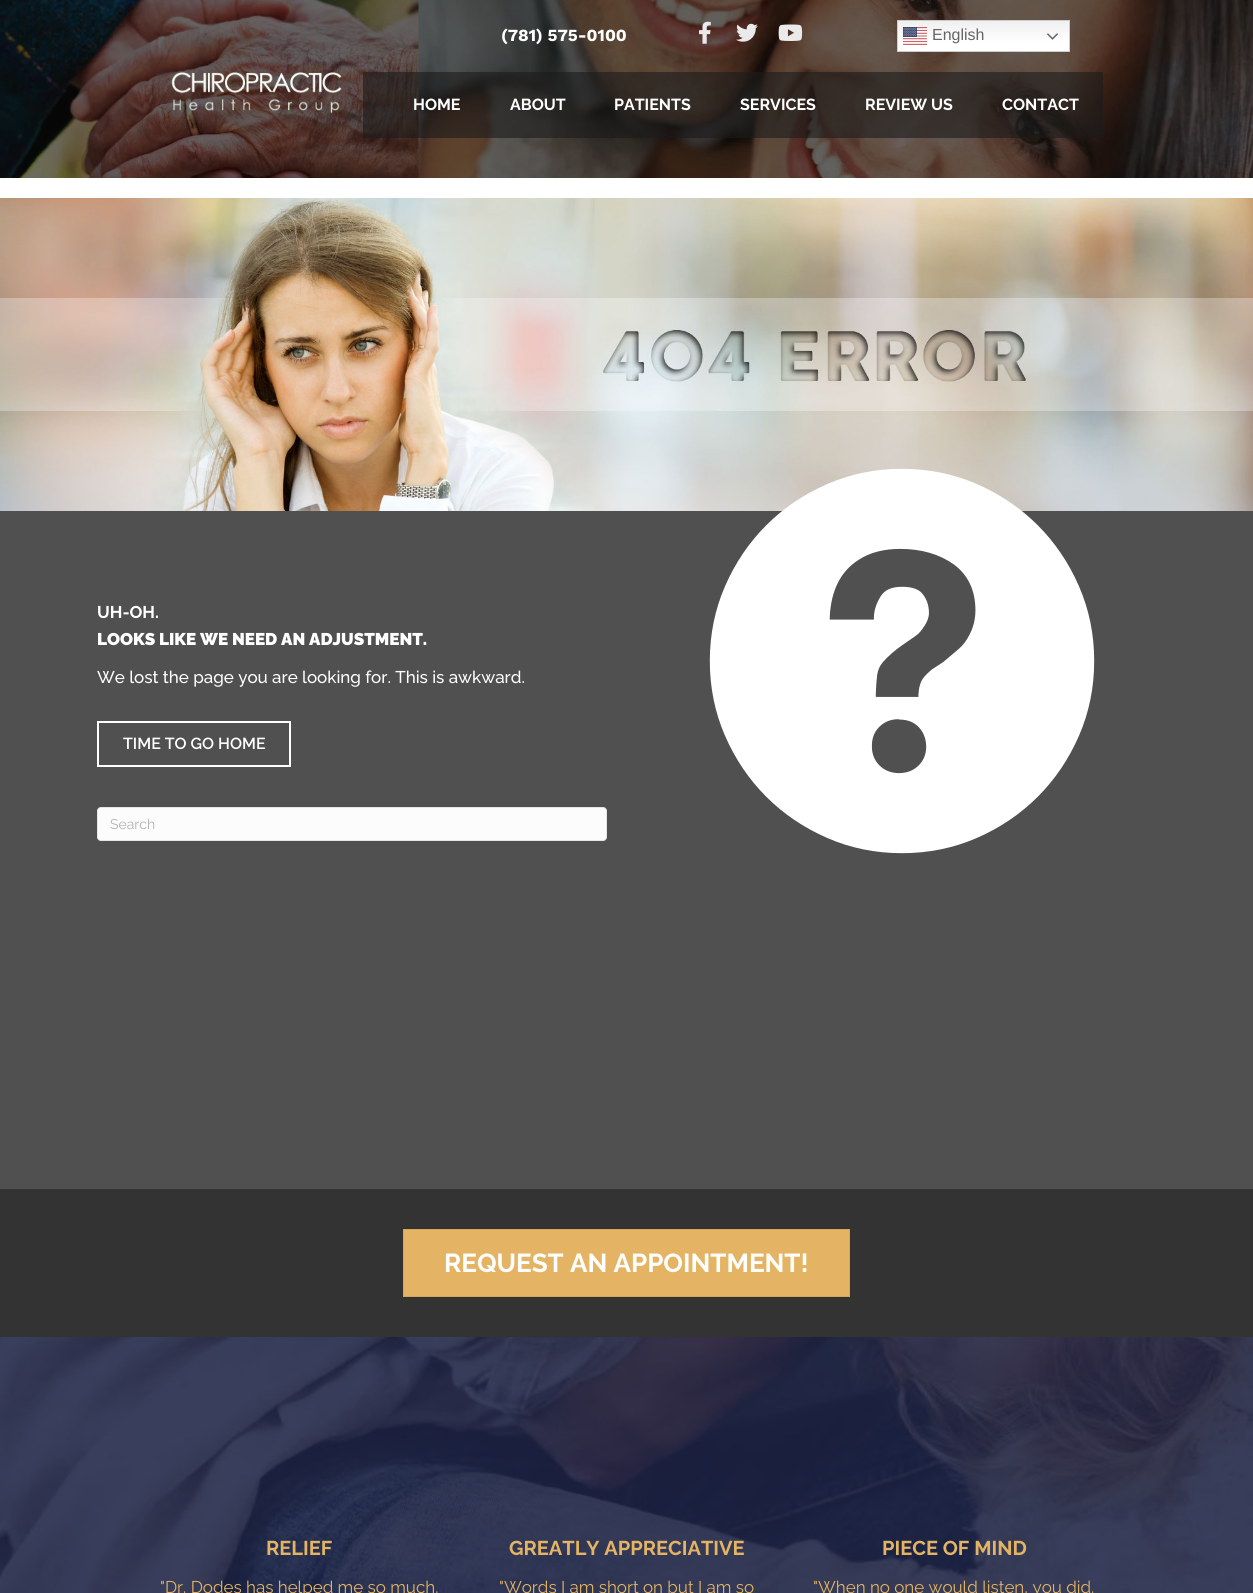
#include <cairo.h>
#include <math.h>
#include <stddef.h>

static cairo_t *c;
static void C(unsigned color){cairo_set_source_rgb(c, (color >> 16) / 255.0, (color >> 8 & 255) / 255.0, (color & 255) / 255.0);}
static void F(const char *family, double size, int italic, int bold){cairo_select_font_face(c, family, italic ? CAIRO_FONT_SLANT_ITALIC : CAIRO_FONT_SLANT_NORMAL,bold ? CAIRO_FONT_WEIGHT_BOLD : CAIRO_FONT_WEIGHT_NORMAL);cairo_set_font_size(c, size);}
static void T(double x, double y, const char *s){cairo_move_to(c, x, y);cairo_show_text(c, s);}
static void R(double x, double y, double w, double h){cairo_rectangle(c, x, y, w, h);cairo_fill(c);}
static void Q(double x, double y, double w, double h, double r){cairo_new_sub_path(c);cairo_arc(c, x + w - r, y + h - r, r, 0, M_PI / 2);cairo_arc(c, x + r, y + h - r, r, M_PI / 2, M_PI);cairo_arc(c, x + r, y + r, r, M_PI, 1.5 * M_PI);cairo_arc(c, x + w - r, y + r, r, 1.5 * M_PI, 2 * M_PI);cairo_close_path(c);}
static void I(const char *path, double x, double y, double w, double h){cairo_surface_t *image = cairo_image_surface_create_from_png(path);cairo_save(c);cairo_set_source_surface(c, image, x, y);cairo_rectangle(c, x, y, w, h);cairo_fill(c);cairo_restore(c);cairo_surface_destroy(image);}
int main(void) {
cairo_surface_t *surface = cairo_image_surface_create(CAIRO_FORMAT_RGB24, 1253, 1593);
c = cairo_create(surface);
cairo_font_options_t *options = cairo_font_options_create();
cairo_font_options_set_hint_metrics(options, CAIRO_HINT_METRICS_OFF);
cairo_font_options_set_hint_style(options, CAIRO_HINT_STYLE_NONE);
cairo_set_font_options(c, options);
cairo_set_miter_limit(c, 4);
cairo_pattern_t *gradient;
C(0xffffff);
cairo_paint(c);
I("1.png",0,0,1253,178);
F("Work Sans",17,0,1);
C(0xffffff);
T(501,41,"(781) 575-0100");
I("2.png",699,21,12,23);
I("3.png",736,23,22,19);
I("4.png",778,24,25,17);
gradient = cairo_pattern_create_linear(984,20,984,52);
cairo_pattern_add_color_stop_rgba(gradient,0,0.937,0.937,0.937,1);
cairo_pattern_add_color_stop_rgba(gradient,.7,1,1,1,1);
cairo_set_source(c,gradient);
cairo_pattern_destroy(gradient);
R(898,21,171,30);
cairo_rectangle(c,897.5,20.5,172,31);
C(0xcccccc);
cairo_set_line_width(c,1);
cairo_stroke(c);
I("5.png",903,27,24,18);
F("Liberation Sans",16,0,0);
C(0x666666);
T(932,40,"English");
I("6.png",1047,33,11,7);
I("7.png",171,72,171,42);
cairo_set_source_rgba(c,0.11,0.11,0.11,0.6);
R(363,72,740,66);
F("Raleway",16,0,1);
C(0xffffff);
T(413,110,"HOME");
T(510,110,"ABOUT");
T(614,110,"PATIENTS");
T(740,110,"SERVICES");
T(865,110,"REVIEW US");
T(1002,110,"CONTACT");
I("8.png",0,198,1253,313);
C(0x505050);
R(0,511,1253,678);
F("Raleway",17,0,1);
C(0xffffff);
T(97,618,"UH-OH.");
F("Raleway Black",17,0,0);
T(97,645,"LOOKS LIKE WE NEED AN ADJUSTMENT.");
F("Raleway Medium",17,0,0);
T(97,683,"We lost the page you are looking for. This is awkward.");
cairo_rectangle(c,98,722,192,44);
cairo_set_line_width(c,2);
cairo_stroke(c);
F("Raleway SemiBold",16,0,0);
T(123,749,"TIME TO GO HOME");
C(0xfcfcfc);
Q(97.5,807.5,509,33,3.5);
cairo_fill_preserve(c);
C(0xe6e6e6);
cairo_set_line_width(c,1);
cairo_stroke(c);
F("Raleway",14,0,0);
C(0xb2b2b2);
T(110,829,"Search");
I("9.png",709,468,386,386);
C(0x333333);
R(0,1189,1253,148);
C(0xe4b363);
cairo_rectangle(c,403.5,1229.5,446,67);
cairo_fill_preserve(c);
C(0xd8a757);
cairo_stroke(c);
F("Raleway",26,0,1);
C(0xffffff);
T(444,1272,"REQUEST AN APPOINTMENT!");
I("10.png",0,1337,1253,256);
F("Raleway",20,0,1);
C(0xe4b363);
T(266,1555,"RELIEF");
F("Raleway",17,0,0);
T(160,1593,"\"Dr. Dodes has helped me so much.");
F("Raleway",20,0,1);
T(509,1555,"GREATLY APPRECIATIVE");
F("Raleway",17,0,0);
T(499,1593,"\"Words I am short on but I am so");
F("Raleway",20,0,1);
T(882,1555,"PIECE OF MIND");
F("Raleway",17,0,0);
T(813,1593,"\"When no one would listen, you did.");
cairo_surface_write_to_png(surface, "o.png");
cairo_font_options_destroy(options);
cairo_destroy(c);
cairo_surface_destroy(surface);
return 0;
}
